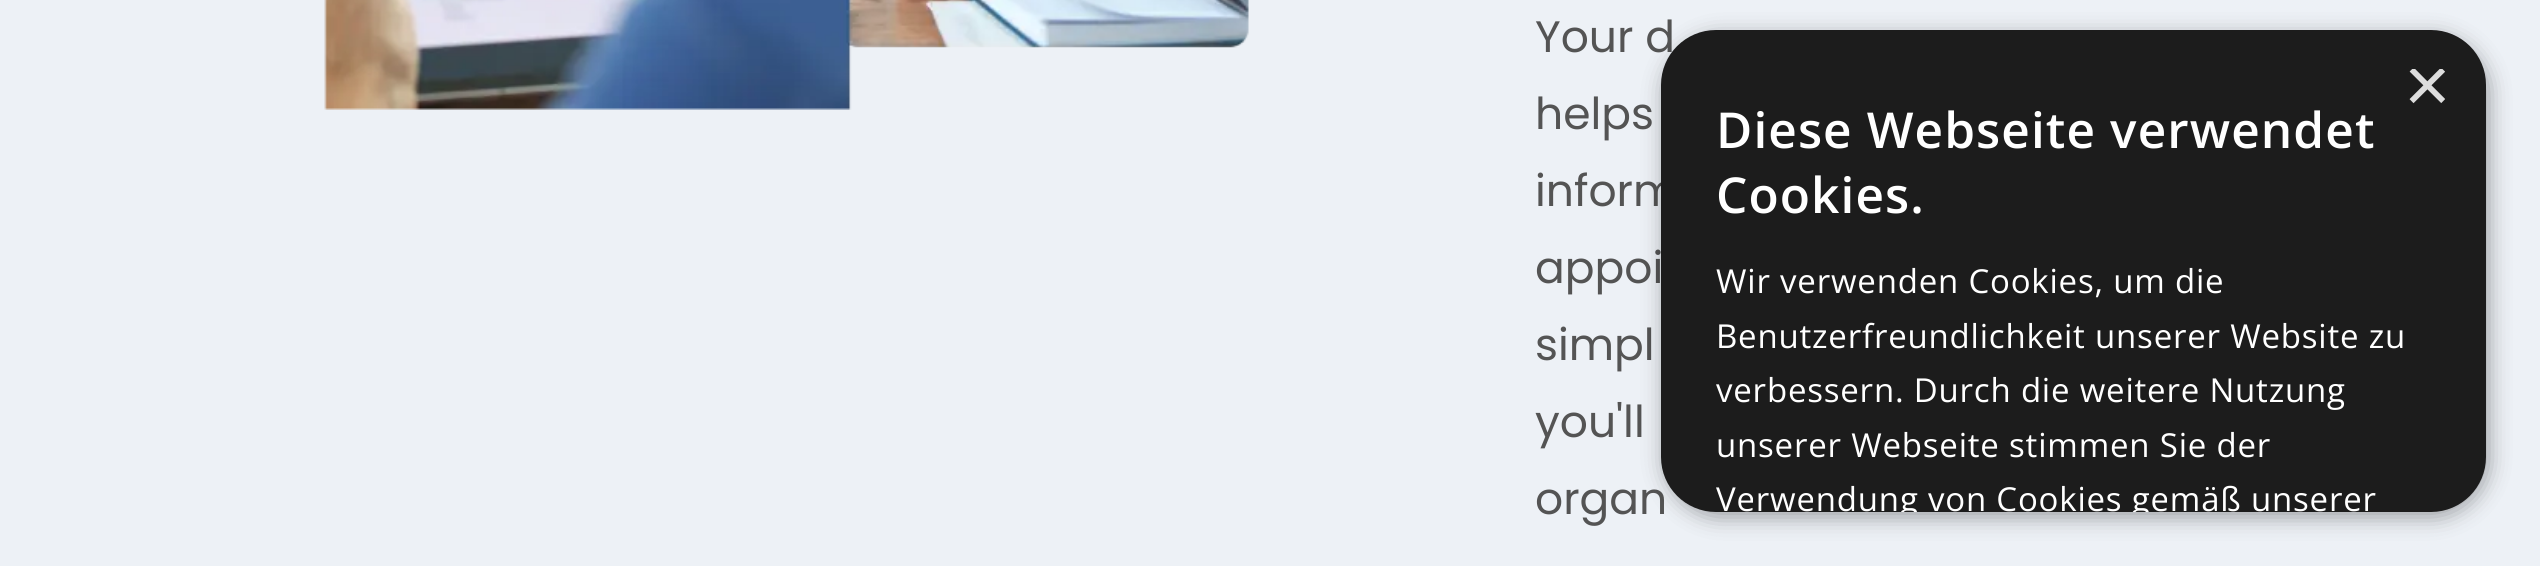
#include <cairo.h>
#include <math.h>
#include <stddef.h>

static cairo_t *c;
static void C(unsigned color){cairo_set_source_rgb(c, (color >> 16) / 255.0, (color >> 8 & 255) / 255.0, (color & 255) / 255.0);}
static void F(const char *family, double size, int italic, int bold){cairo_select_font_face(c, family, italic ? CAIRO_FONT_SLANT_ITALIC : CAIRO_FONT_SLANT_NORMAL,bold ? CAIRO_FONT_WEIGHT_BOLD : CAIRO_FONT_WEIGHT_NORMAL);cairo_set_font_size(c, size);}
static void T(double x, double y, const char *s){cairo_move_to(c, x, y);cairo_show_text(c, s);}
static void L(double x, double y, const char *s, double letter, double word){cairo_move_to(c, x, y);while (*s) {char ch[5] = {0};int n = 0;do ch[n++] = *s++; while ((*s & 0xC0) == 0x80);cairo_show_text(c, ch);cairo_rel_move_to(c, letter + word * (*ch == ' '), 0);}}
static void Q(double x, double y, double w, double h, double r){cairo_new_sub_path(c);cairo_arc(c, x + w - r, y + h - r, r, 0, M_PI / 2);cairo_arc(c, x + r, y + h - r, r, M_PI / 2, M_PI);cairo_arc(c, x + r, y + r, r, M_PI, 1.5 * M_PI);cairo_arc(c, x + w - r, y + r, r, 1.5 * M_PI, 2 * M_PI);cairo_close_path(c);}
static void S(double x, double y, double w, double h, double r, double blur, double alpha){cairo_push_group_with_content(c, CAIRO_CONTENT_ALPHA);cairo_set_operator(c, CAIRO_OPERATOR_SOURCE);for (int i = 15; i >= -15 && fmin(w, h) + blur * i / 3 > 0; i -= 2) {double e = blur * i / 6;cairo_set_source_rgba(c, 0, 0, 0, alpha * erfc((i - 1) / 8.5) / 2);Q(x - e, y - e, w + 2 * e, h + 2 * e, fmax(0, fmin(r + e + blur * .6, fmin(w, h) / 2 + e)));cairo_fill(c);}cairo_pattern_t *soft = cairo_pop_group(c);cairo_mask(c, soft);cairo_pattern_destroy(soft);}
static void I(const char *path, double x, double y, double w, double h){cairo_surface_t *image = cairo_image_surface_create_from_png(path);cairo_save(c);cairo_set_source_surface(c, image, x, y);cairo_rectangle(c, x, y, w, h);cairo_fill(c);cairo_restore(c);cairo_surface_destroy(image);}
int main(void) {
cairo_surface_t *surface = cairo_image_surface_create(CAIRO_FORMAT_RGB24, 2540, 566);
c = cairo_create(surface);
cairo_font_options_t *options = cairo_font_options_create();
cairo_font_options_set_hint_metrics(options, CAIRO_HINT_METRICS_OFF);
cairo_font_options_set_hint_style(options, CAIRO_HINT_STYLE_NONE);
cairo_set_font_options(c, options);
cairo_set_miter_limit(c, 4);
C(0xedf1f6);
cairo_paint(c);
I("1.png",324,0,925,110);
F("Poppins",44,0,0);
C(0x545454);
T(1535,52,"Your d");
T(1535,129,"helps");
T(1535,206,"inform");
T(1535,283,"appoi");
T(1535,360,"simpl");
T(1535,437,"you'll");
T(1535,514,"organ");
C(0x000000);
S(1664,36,825,481,55,11,.35);
C(0x1c1c1c);
Q(1661,30,825,482,55);
cairo_fill(c);
cairo_save(c);
cairo_rectangle(c,2404,69,41,41);
cairo_clip(c);
F("Liberation Sans",80,0,0);
C(0xdddddd);
T(2404,112,"×");
cairo_restore(c);
F("Open Sans SemiBold",49.5,0,0);
C(0xffffff);
L(1716,148,"Diese Webseite verwendet",1.1,0);
L(1716,213,"Cookies.",1.1,0);
F("Open Sans",33,0,0);
L(1716,293,"Wir verwenden Cookies, um die",.8,0);
L(1716,348,"Benutzerfreundlichkeit unserer Website zu",.8,0);
L(1716,402,"verbessern. Durch die weitere Nutzung",.8,0);
L(1716,457,"unserer Webseite stimmen Sie der",.8,0);
cairo_save(c);
Q(1661,30,825,482,55);
cairo_clip(c);
L(1716,511,"Verwendung von Cookies gemäß unserer",.8,0);
cairo_restore(c);
cairo_surface_write_to_png(surface, "o.png");
cairo_font_options_destroy(options);
cairo_destroy(c);
cairo_surface_destroy(surface);
return 0;
}
